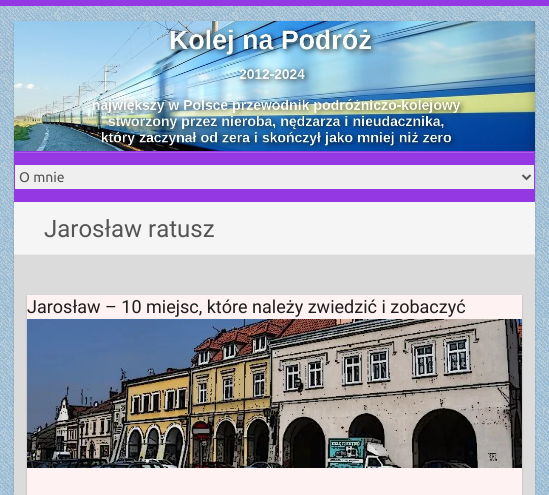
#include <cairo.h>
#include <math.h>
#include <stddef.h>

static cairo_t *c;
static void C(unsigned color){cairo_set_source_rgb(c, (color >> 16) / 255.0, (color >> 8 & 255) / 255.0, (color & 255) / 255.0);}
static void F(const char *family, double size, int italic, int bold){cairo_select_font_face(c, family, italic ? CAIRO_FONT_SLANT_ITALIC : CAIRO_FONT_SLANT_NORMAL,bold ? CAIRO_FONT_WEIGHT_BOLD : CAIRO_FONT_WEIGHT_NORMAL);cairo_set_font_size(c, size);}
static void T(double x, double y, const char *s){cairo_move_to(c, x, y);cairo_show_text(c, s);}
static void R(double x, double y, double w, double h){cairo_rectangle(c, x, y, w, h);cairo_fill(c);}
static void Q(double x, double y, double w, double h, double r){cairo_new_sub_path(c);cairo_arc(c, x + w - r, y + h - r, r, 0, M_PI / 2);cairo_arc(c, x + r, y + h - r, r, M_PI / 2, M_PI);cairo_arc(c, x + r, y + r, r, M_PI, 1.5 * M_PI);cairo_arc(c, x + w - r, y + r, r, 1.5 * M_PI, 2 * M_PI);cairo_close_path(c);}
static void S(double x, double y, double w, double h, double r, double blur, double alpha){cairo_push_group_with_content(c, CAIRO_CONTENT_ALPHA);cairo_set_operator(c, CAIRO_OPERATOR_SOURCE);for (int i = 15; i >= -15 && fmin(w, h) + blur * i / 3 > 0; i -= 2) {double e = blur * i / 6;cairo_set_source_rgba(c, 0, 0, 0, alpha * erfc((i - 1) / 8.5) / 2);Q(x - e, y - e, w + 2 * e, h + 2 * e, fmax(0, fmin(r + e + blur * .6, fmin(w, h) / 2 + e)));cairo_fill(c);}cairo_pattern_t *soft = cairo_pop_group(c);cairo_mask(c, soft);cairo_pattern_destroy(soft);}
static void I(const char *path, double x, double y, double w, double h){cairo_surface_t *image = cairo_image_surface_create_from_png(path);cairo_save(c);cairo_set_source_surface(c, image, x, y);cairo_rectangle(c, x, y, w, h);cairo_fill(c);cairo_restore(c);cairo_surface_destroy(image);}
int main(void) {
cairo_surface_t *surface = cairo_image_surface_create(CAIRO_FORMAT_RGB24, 549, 495);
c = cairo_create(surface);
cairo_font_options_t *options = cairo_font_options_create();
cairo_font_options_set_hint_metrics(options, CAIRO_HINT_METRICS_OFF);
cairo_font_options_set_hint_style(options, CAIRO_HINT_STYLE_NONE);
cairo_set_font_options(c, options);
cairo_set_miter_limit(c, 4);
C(0xffffff);
cairo_paint(c);
I("1.png",0,6,549,489);
C(0x9338e2);
R(0,0,549,6);
C(0x000000);
S(14,22,521,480,4,1,.2);
C(0xdbdbdb);
R(14,255,521,240);
I("2.png",14,21,521,130);
C(0x9338e2);
R(14,151,521,51);
C(0xa960e8);
R(15,152,519,1);
C(0xefefef);
R(15,165,519,24);
cairo_new_path(c);
cairo_move_to(c,522.5,175);
cairo_line_to(c,526.5,179);
cairo_line_to(c,530.5,175);
C(0x555555);
cairo_stroke(c);
F("Ubuntu",14,0,0);
T(19,182,"O mnie");
C(0xf5f5f5);
R(14,202,521,52);
C(0xeaeaea);
R(14,254,521,1);
F("Roboto",24,0,0);
C(0x555555);
T(44,237,"Jarosław ratusz");
C(0x000000);
S(27,296,495,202,0,1,.2);
C(0xfff2f2);
R(27,295,495,200);
F("Roboto",18,0,0);
C(0x1d1d1d);
T(27,313,"Jarosław – 10 miejsc, które należy zwiedzić i zobaczyć");
I("3.png",27,319,495,149);
cairo_surface_write_to_png(surface, "o.png");
cairo_font_options_destroy(options);
cairo_destroy(c);
cairo_surface_destroy(surface);
return 0;
}
